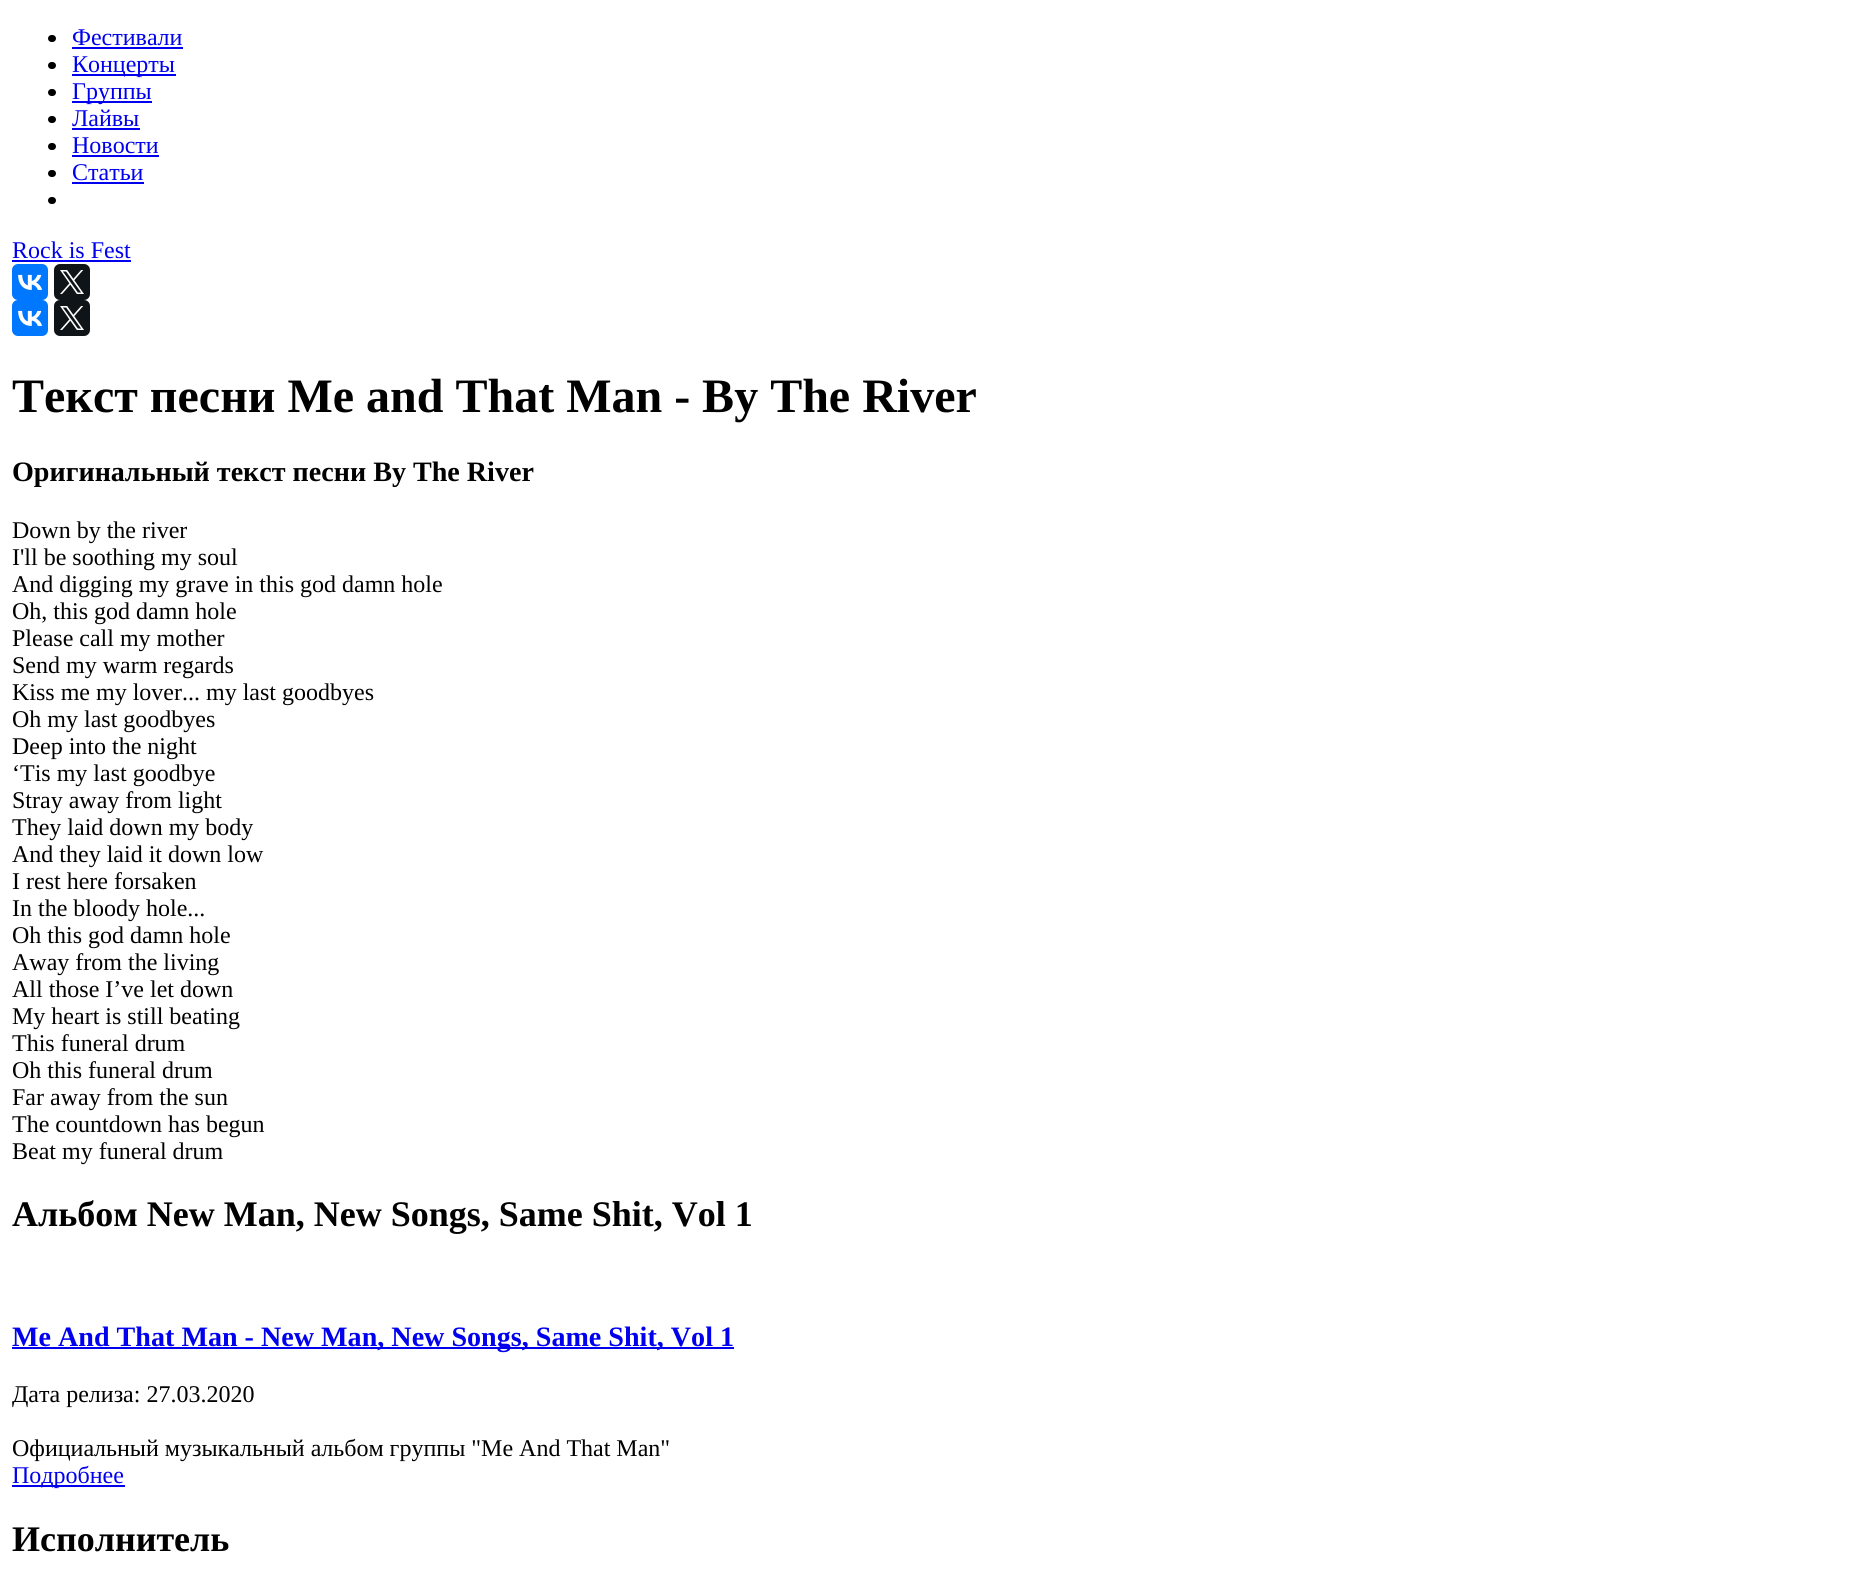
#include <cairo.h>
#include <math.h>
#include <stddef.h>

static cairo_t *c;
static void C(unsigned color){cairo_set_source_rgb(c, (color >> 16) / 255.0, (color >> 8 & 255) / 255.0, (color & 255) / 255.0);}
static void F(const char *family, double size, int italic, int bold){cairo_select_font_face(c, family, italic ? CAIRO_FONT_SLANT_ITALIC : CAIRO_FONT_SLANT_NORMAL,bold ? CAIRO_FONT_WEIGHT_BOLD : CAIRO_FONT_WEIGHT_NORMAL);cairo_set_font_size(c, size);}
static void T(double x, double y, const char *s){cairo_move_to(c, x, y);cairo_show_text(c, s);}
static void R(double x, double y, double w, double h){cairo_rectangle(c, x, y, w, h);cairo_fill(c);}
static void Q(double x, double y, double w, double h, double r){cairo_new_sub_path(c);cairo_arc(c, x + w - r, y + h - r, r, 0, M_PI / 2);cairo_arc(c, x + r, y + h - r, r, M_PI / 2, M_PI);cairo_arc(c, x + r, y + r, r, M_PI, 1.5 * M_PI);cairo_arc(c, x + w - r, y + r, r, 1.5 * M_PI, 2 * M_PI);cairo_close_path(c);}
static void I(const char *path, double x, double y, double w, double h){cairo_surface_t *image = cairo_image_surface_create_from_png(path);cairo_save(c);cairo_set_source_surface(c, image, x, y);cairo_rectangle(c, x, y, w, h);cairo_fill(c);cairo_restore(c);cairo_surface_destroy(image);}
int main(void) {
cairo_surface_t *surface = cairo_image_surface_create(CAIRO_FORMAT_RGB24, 1856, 1585);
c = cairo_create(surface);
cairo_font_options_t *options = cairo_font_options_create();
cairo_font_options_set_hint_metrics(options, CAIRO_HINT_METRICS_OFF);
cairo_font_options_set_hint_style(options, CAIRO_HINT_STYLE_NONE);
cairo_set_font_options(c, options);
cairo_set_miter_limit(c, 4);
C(0xffffff);
cairo_paint(c);
C(0x000000);
Q(48,35,8,7,3.5);
cairo_fill(c);
F("Liberation Serif",24,0,0);
C(0x0000ee);
T(72,45,"Фестивали");
R(72,47,111,2);
C(0x000000);
Q(48,62,8,7,3.5);
cairo_fill(c);
C(0x0000ee);
R(72,74,104,2);
T(72,72,"Концерты");
C(0x000000);
Q(48,89,8,7,3.5);
cairo_fill(c);
C(0x0000ee);
R(72,101,80,2);
T(72,99,"Группы");
C(0x000000);
Q(48,116,8,7,3.5);
cairo_fill(c);
C(0x0000ee);
T(72,126,"Лайвы");
R(72,128,68,2);
C(0x000000);
Q(48,143,8,7,3.5);
cairo_fill(c);
C(0x0000ee);
T(72,153,"Новости");
R(72,155,87,2);
C(0x000000);
Q(48,170,8,7,3.5);
cairo_fill(c);
C(0x0000ee);
T(72,180,"Статьи");
R(72,182,72,2);
C(0x000000);
Q(48,197,8,7,3.5);
cairo_fill(c);
C(0x0000ee);
T(12,258,"Rock is Fest");
R(12,260,119,2);
C(0x0077ff);
Q(12,264,36,36,6);
cairo_fill(c);
I("1.png",18,274,24,16);
C(0x0f1419);
Q(54,264,36,36,6);
cairo_fill(c);
I("2.png",60,270,24,24);
C(0x0077ff);
Q(12,300,36,36,6);
cairo_fill(c);
I("1.png",18,310,24,16);
C(0x0f1419);
Q(54,300,36,36,6);
cairo_fill(c);
I("2.png",60,306,24,24);
F("Liberation Serif",48,0,1);
C(0x000000);
T(12,412,"Текст песни Me and That Man - By The River");
F("Liberation Serif",28.1,0,1);
T(12,481,"Оригинальный текст песни By The River");
F("Liberation Serif",24,0,0);
T(12,538,"Down by the river");
T(12,565,"I'll be soothing my soul");
T(12,592,"And digging my grave in this god damn hole");
T(12,619,"Oh, this god damn hole");
T(12,646,"Please call my mother");
T(12,673,"Send my warm regards");
T(12,700,"Kiss me my lover... my last goodbyes");
T(12,727,"Oh my last goodbyes");
T(12,754,"Deep into the night");
T(12,781,"‘Tis my last goodbye");
T(12,808,"Stray away from light");
T(12,835,"They laid down my body");
T(12,862,"And they laid it down low");
T(12,889,"I rest here forsaken");
T(12,916,"In the bloody hole...");
T(12,943,"Oh this god damn hole");
T(12,970,"Away from the living");
T(12,997,"All those I’ve let down");
T(12,1024,"My heart is still beating");
T(12,1051,"This funeral drum");
T(12,1078,"Oh this funeral drum");
T(12,1105,"Far away from the sun");
T(12,1132,"The countdown has begun");
T(12,1159,"Beat my funeral drum");
F("Liberation Serif",36,0,1);
T(12,1226,"Альбом New Man, New Songs, Same Shit, Vol 1");
C(0x0000ee);
R(12,1347,722,2);
F("Liberation Serif",28.1,0,1);
T(12,1346,"Me And That Man - New Man, New Songs, Same Shit, Vol 1");
F("Liberation Serif",24,0,0);
C(0x000000);
T(12,1402,"Дата релиза: 27.03.2020");
T(12,1456,"Официальный музыкальный альбом группы \"Me And That Man\"");
C(0x0000ee);
R(12,1485,113,2);
T(12,1483,"Подробнее");
F("Liberation Serif",36,0,1);
C(0x000000);
T(12,1551,"Исполнитель");
cairo_surface_write_to_png(surface, "o.png");
cairo_font_options_destroy(options);
cairo_destroy(c);
cairo_surface_destroy(surface);
return 0;
}
